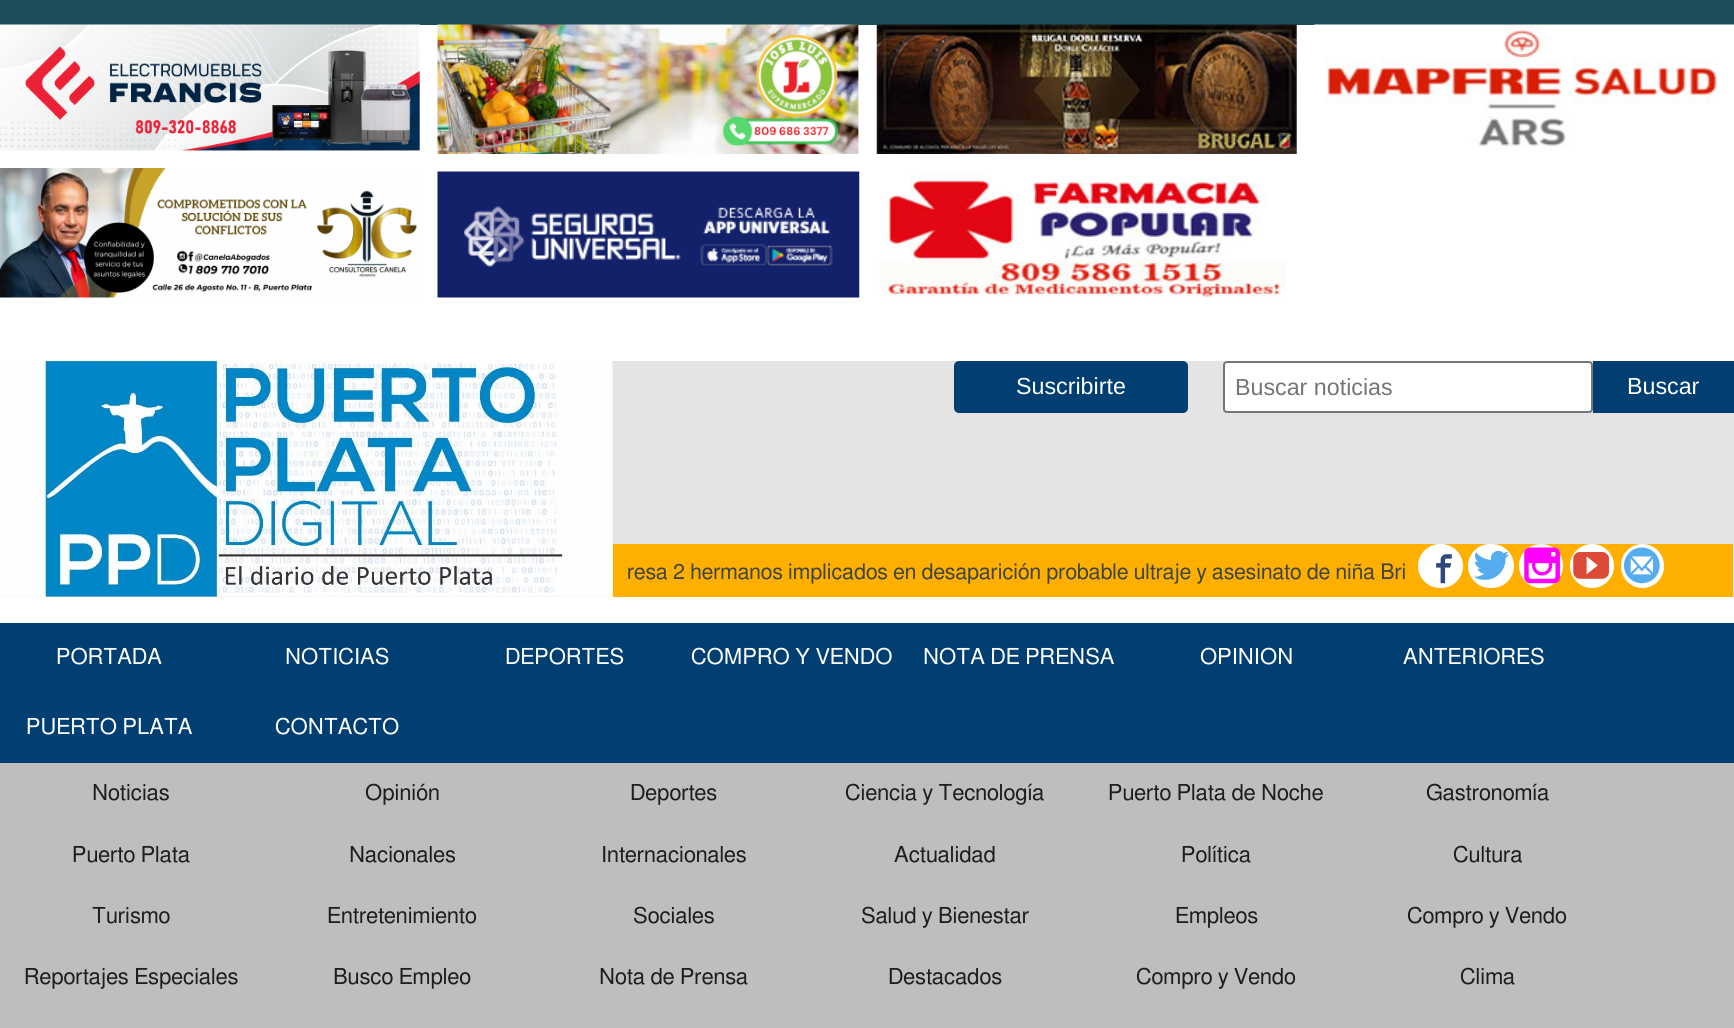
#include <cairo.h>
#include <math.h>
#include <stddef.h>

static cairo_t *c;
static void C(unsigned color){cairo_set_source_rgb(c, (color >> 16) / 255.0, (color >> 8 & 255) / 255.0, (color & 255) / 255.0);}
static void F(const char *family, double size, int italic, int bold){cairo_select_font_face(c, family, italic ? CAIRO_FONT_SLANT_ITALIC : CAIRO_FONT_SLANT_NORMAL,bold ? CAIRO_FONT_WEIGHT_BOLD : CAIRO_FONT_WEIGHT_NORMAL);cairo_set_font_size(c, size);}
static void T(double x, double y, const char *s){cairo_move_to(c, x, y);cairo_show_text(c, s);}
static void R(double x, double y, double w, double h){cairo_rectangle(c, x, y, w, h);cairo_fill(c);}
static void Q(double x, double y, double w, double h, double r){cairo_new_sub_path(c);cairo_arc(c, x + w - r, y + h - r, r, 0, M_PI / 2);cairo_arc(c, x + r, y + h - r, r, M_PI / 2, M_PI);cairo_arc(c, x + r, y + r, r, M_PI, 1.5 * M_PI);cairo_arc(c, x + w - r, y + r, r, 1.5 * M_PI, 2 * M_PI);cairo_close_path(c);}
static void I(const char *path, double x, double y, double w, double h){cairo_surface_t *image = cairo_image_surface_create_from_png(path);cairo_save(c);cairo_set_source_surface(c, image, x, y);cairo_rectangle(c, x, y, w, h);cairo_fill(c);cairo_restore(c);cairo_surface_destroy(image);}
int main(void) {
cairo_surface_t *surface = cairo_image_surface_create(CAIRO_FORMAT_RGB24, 1734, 1028);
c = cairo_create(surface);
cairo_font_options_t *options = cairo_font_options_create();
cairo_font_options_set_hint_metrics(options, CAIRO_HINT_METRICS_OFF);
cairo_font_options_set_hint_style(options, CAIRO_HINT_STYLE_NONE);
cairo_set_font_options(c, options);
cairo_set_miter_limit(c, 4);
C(0xffffff);
cairo_paint(c);
C(0x1b4e58);
R(0,0,1734,25);
I("1.png",0,24,420,127);
I("2.png",437,24,422,130);
I("3.png",876,24,421,130);
I("4.png",1314,24,420,124);
I("5.png",0,168,417,130);
I("6.png",437,171,423,127);
I("7.png",878,171,408,128);
C(0xe4e4e4);
R(0,361,1734,236);
I("8.png",0,360,613,237);
C(0x013f73);
Q(954,361,234,52,5);
cairo_fill(c);
F("Liberation Sans",23.25,0,0);
C(0xffffff);
T(1016,394,"Suscribirte");
Q(1224,362,368,50,3);
cairo_fill_preserve(c);
C(0x767676);
cairo_stroke(c);
C(0x757575);
T(1235,395,"Buscar noticias");
C(0x013f73);
R(1593,361,141,52);
C(0xffffff);
T(1627,394,"Buscar");
C(0xffaf00);
R(613,544,1120,53);
F("FreeSans",21.4,0,0);
C(0x3f4542);
T(627,579,"resa 2 hermanos implicados en desaparición probable ultraje y asesinato de niña Bri");
C(0xffffff);
Q(1418,544,45,44,22);
cairo_fill(c);
Q(1468,544,46,44,22);
cairo_fill(c);
cairo_arc(c,1541,566,22,0,2 * M_PI);
cairo_fill(c);
cairo_arc(c,1592,566,22,0,2 * M_PI);
cairo_fill(c);
Q(1621,544,43,44,21.5);
cairo_fill(c);
I("9.png",1436,554,16,30);
I("10.png",1473,550,36,30);
I("11.png",1524,547,36,37);
I("12.png",1573,552,36,27);
I("13.png",1624,547,36,37);
C(0x013f73);
R(0,623,1734,140);
F("FreeSans",22,0,0);
C(0xffffff);
T(56,664,"PORTADA");
T(285,664,"NOTICIAS");
T(505,664,"DEPORTES");
T(691,664,"COMPRO Y VENDO");
T(923,664,"NOTA DE PRENSA");
T(1200,664,"OPINION");
T(1403,664,"ANTERIORES");
T(26,734,"PUERTO PLATA");
T(275,734,"CONTACTO");
C(0xbebebe);
R(0,763,1734,265);
C(0x1e1e1e);
T(92,800,"Noticias");
T(365,800,"Opinión");
T(630,800,"Deportes");
T(845,800,"Ciencia y Tecnología");
T(1108,800,"Puerto Plata de Noche");
T(1426,800,"Gastronomía");
T(72,862,"Puerto Plata");
T(349,862,"Nacionales");
T(601,862,"Internacionales");
T(894,862,"Actualidad");
T(1181,862,"Política");
T(1453,862,"Cultura");
T(92,923,"Turismo");
T(327,923,"Entretenimiento");
T(633,923,"Sociales");
T(861,923,"Salud y Bienestar");
T(1175,923,"Empleos");
T(1407,923,"Compro y Vendo");
T(24,984,"Reportajes Especiales");
T(333,984,"Busco Empleo");
T(599,984,"Nota de Prensa");
T(888,984,"Destacados");
T(1136,984,"Compro y Vendo");
T(1460,984,"Clima");
cairo_surface_write_to_png(surface, "o.png");
cairo_font_options_destroy(options);
cairo_destroy(c);
cairo_surface_destroy(surface);
return 0;
}
